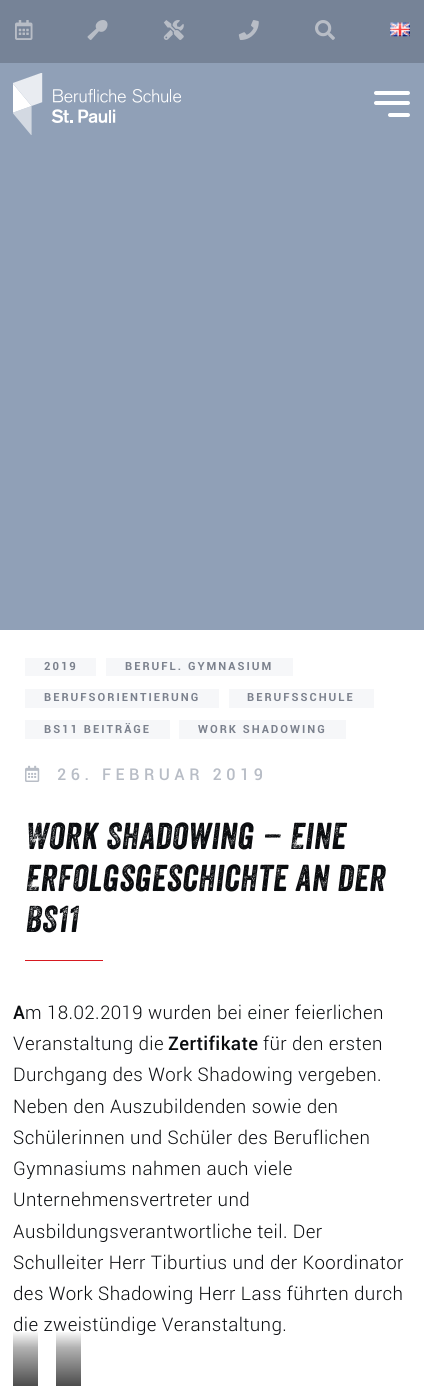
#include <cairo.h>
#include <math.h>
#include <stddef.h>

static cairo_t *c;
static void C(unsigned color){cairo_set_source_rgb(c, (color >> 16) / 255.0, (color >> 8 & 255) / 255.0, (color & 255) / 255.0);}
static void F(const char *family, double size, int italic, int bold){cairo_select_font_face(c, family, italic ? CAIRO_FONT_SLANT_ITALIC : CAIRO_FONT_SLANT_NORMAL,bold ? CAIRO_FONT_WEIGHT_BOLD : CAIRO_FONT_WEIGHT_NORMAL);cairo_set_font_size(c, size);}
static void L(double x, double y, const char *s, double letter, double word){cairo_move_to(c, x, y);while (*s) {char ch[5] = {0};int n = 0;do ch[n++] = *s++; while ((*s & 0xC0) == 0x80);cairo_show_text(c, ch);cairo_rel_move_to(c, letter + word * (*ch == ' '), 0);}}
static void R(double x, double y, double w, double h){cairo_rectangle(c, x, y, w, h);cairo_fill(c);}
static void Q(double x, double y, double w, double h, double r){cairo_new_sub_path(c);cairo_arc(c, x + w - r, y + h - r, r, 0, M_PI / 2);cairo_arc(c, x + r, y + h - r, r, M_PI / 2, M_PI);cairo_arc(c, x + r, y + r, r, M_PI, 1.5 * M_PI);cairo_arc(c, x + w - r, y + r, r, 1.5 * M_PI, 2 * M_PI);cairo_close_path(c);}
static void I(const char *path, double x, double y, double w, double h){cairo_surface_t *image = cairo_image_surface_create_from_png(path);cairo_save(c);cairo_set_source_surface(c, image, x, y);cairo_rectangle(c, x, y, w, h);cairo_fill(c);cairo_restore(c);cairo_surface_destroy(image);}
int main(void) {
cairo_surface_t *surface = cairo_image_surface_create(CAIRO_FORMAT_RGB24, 424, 1397);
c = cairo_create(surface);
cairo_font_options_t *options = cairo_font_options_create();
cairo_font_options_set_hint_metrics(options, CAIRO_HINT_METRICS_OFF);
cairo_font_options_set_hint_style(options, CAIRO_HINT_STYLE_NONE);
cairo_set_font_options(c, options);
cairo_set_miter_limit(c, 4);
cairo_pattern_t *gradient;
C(0xffffff);
cairo_paint(c);
C(0x768397);
R(0,0,424,63);
I("1.png",15,20,18,20);
I("2.png",87,20,21,20);
I("3.png",163,20,21,20);
I("4.png",238,20,21,20);
I("5.png",315,20,20,20);
I("6.png",390,22,20,15);
C(0x90a0b7);
R(0,63,424,567);
I("7.png",13,73,168,62);
C(0xffffff);
Q(374,101,36,4,2);
cairo_fill(c);
Q(374,91,36,4,2);
cairo_fill(c);
Q(388,113,22,4,2);
cairo_fill(c);
C(0xf6f7f9);
R(25,658,71,18);
F("Roboto",11.25,0,1);
C(0x7b818d);
L(44,670,"2019",2,0);
C(0xf6f7f9);
R(106,658,187,18);
C(0x7b818d);
L(125,670,"BERUFL. GYMNASIUM",2,0);
C(0xf6f7f9);
R(25,689,194,19);
C(0x7b818d);
L(44,701,"BERUFSORIENTIERUNG",2,0);
C(0xf6f7f9);
R(229,689,145,19);
C(0x7b818d);
L(247,701,"BERUFSSCHULE",2,0);
C(0xf6f7f9);
R(25,720,145,19);
C(0x7b818d);
L(44,733,"BS11 BEITRÄGE",2,0);
C(0xf6f7f9);
R(179,720,167,19);
C(0x7b818d);
L(198,733,"WORK SHADOWING",2,0);
I("8.png",25,765,15,17);
F("Roboto Medium",16.25,0,0);
C(0xb8bdc6);
L(57,780,"26. FEBRUAR 2019",4.5,0);
F("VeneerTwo",36.25,1,0);
C(0x0a0c0f);
L(25,849,"Work Shadowing – Eine",.75,0);
L(25,891,"Erfolgsgeschichte an der",.75,0);
L(25,932,"BS11",.75,0);
C(0xd71920);
R(25,960,78,1);
F("Roboto Medium",18.75,0,0);
C(0x0a0c0f);
L(13,1019,"A",.4,0);
F("Roboto Light",18.75,0,0);
L(25,1019,"m 18.02.2019 wurden bei einer feierlichen",.4,0);
L(13,1050,"Veranstaltung die",.4,0);
F("Roboto Medium",18.75,0,0);
L(168,1050,"Zertifikate",.4,0);
F("Roboto Light",18.75,0,0);
L(263,1050,"für den ersten",.4,0);
L(13,1081,"Durchgang des Work Shadowing vergeben.",.4,0);
L(13,1113,"Neben den Auszubildenden sowie den",.4,0);
L(13,1144,"Schülerinnen und Schüler des Beruflichen",.4,0);
L(13,1175,"Gymnasiums nahmen auch viele",.4,0);
L(13,1206,"Unternehmensvertreter und",.4,0);
L(13,1238,"Ausbildungsverantwortliche teil. Der",.4,0);
L(13,1269,"Schulleiter Herr Tiburtius und der Koordinator",.4,0);
L(13,1300,"des Work Shadowing Herr Lass führten durch",.4,0);
L(13,1331,"die zweistündige Veranstaltung.",.4,0);
gradient = cairo_pattern_create_linear(25,1386,25,1331);
cairo_pattern_add_color_stop_rgba(gradient,0,0,0,0,.7);
cairo_pattern_add_color_stop_rgba(gradient,.7,0,0,0,.3);
cairo_pattern_add_color_stop_rgba(gradient,1,0,0,0,0);
cairo_set_source(c,gradient);
cairo_pattern_destroy(gradient);
R(13,1332,25,54);
gradient = cairo_pattern_create_linear(69,1386,69,1331);
cairo_pattern_add_color_stop_rgba(gradient,0,0,0,0,.7);
cairo_pattern_add_color_stop_rgba(gradient,.7,0,0,0,.3);
cairo_pattern_add_color_stop_rgba(gradient,1,0,0,0,0);
cairo_set_source(c,gradient);
cairo_pattern_destroy(gradient);
R(56,1332,25,54);
cairo_surface_write_to_png(surface, "o.png");
cairo_font_options_destroy(options);
cairo_destroy(c);
cairo_surface_destroy(surface);
return 0;
}
